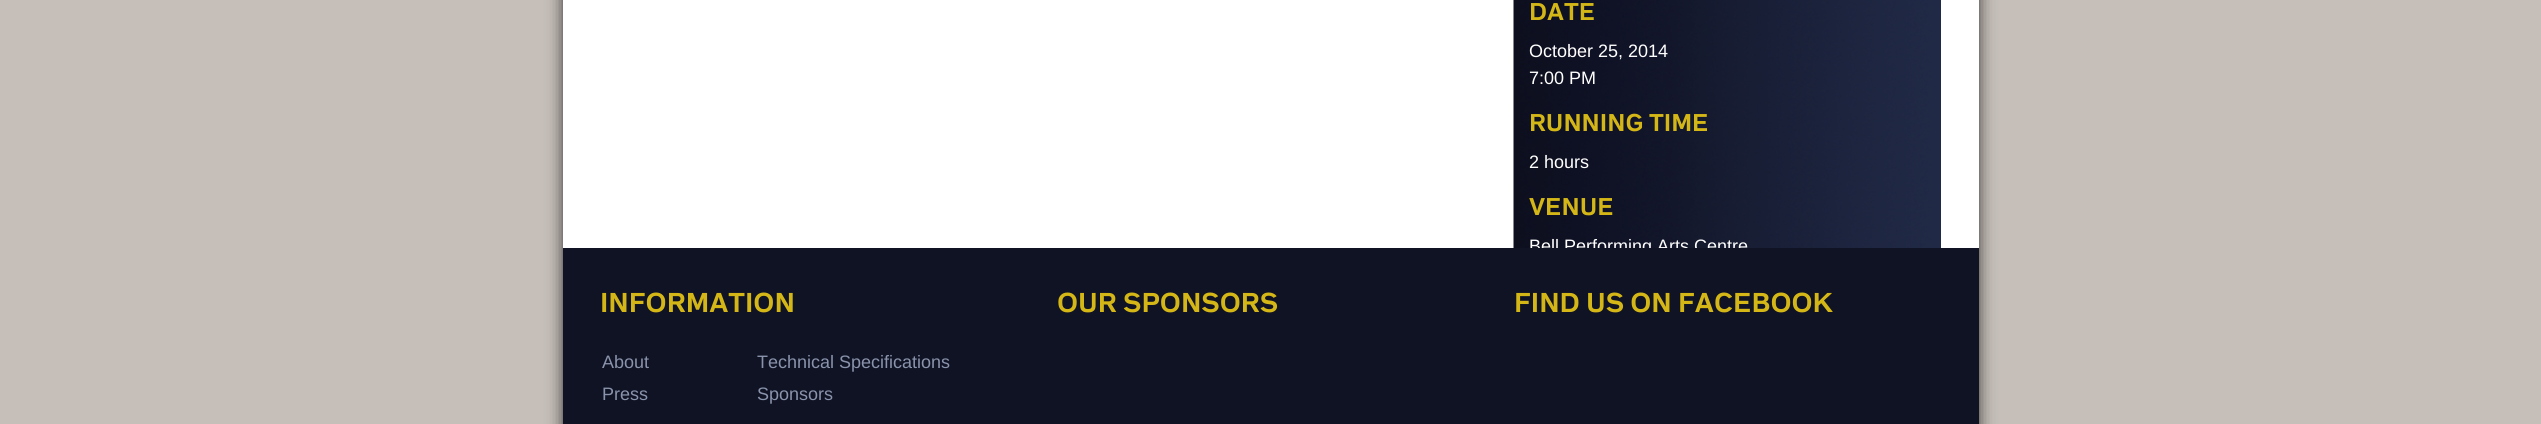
#include <cairo.h>
#include <math.h>
#include <stddef.h>

static cairo_t *c;
static void C(unsigned color){cairo_set_source_rgb(c, (color >> 16) / 255.0, (color >> 8 & 255) / 255.0, (color & 255) / 255.0);}
static void F(const char *family, double size, int italic, int bold){cairo_select_font_face(c, family, italic ? CAIRO_FONT_SLANT_ITALIC : CAIRO_FONT_SLANT_NORMAL,bold ? CAIRO_FONT_WEIGHT_BOLD : CAIRO_FONT_WEIGHT_NORMAL);cairo_set_font_size(c, size);}
static void T(double x, double y, const char *s){cairo_move_to(c, x, y);cairo_show_text(c, s);}
static void R(double x, double y, double w, double h){cairo_rectangle(c, x, y, w, h);cairo_fill(c);}
static void Q(double x, double y, double w, double h, double r){cairo_new_sub_path(c);cairo_arc(c, x + w - r, y + h - r, r, 0, M_PI / 2);cairo_arc(c, x + r, y + h - r, r, M_PI / 2, M_PI);cairo_arc(c, x + r, y + r, r, M_PI, 1.5 * M_PI);cairo_arc(c, x + w - r, y + r, r, 1.5 * M_PI, 2 * M_PI);cairo_close_path(c);}
static void S(double x, double y, double w, double h, double r, double blur, double alpha){cairo_push_group_with_content(c, CAIRO_CONTENT_ALPHA);cairo_set_operator(c, CAIRO_OPERATOR_SOURCE);for (int i = 15; i >= -15 && fmin(w, h) + blur * i / 3 > 0; i -= 2) {double e = blur * i / 6;cairo_set_source_rgba(c, 0, 0, 0, alpha * erfc((i - 1) / 8.5) / 2);Q(x - e, y - e, w + 2 * e, h + 2 * e, fmax(0, fmin(r + e + blur * .6, fmin(w, h) / 2 + e)));cairo_fill(c);}cairo_pattern_t *soft = cairo_pop_group(c);cairo_mask(c, soft);cairo_pattern_destroy(soft);}
static void I(const char *path, double x, double y, double w, double h){cairo_surface_t *image = cairo_image_surface_create_from_png(path);cairo_save(c);cairo_set_source_surface(c, image, x, y);cairo_rectangle(c, x, y, w, h);cairo_fill(c);cairo_restore(c);cairo_surface_destroy(image);}
int main(void) {
cairo_surface_t *surface = cairo_image_surface_create(CAIRO_FORMAT_RGB24, 2541, 424);
c = cairo_create(surface);
cairo_font_options_t *options = cairo_font_options_create();
cairo_font_options_set_hint_metrics(options, CAIRO_HINT_METRICS_OFF);
cairo_font_options_set_hint_style(options, CAIRO_HINT_STYLE_NONE);
cairo_set_font_options(c, options);
cairo_set_miter_limit(c, 4);
C(0xc6bfb9);
cairo_paint(c);
C(0x000000);
S(566,-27,1410,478,0,9,1);
C(0xffffff);
R(563,0,1416,248);
I("1.png",1513,0,428,248);
F("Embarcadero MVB",24,0,1);
C(0xd4b717);
T(1529,20,"DATE");
F("Liberation Sans",18,0,0);
C(0xffffff);
T(1529,57,"October 25, 2014");
T(1529,84,"7:00 PM");
F("Embarcadero MVB",24,0,1);
C(0xd4b717);
T(1529,131,"RUNNING TIME");
F("Liberation Sans",18,0,0);
C(0xffffff);
T(1529,168,"2 hours");
F("Embarcadero MVB",24,0,1);
C(0xd4b717);
T(1529,215,"VENUE");
F("Liberation Sans",18,0,0);
C(0xffffff);
T(1529,252,"Bell Performing Arts Centre");
C(0x101324);
R(563,248,1416,176);
F("Embarcadero MVB",27,0,1);
C(0xd4b717);
T(600,312,"INFORMATION");
F("Liberation Sans",18,0,0);
C(0x8993ab);
T(602,368,"About");
T(602,400,"Press");
T(757,368,"Technical Specifications");
T(757,400,"Sponsors");
F("Embarcadero MVB",27,0,1);
C(0xd4b717);
T(1057,312,"OUR SPONSORS");
T(1514,312,"FIND US ON FACEBOOK");
cairo_surface_write_to_png(surface, "o.png");
cairo_font_options_destroy(options);
cairo_destroy(c);
cairo_surface_destroy(surface);
return 0;
}
